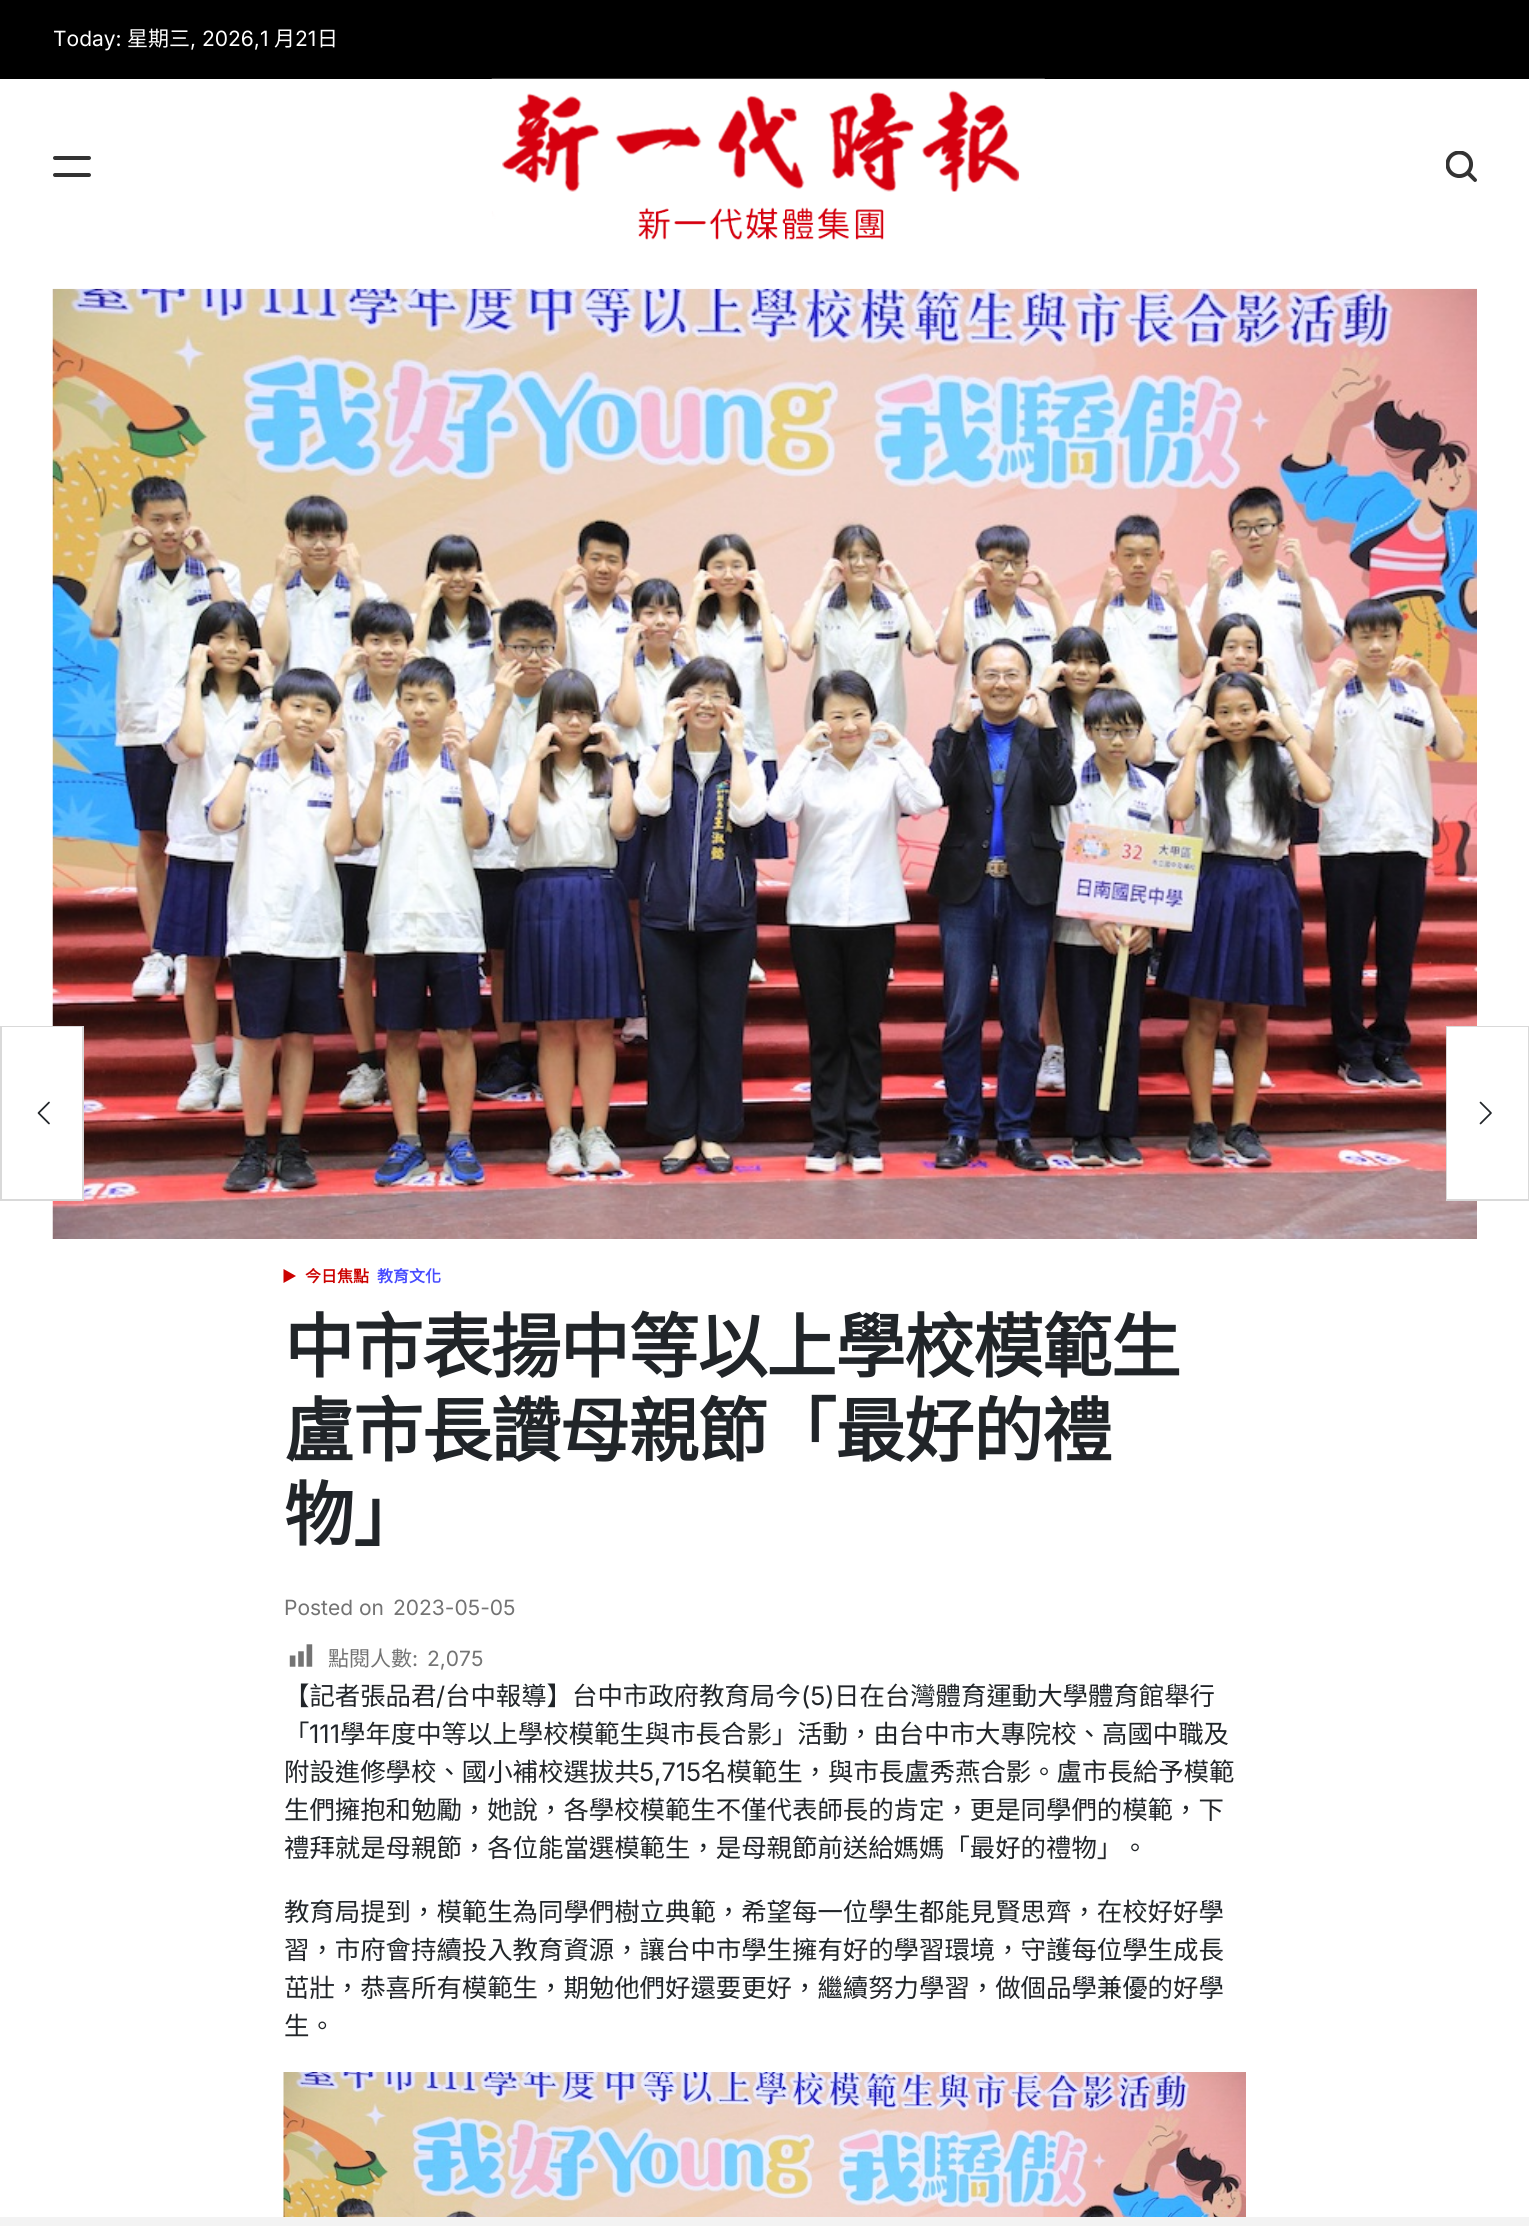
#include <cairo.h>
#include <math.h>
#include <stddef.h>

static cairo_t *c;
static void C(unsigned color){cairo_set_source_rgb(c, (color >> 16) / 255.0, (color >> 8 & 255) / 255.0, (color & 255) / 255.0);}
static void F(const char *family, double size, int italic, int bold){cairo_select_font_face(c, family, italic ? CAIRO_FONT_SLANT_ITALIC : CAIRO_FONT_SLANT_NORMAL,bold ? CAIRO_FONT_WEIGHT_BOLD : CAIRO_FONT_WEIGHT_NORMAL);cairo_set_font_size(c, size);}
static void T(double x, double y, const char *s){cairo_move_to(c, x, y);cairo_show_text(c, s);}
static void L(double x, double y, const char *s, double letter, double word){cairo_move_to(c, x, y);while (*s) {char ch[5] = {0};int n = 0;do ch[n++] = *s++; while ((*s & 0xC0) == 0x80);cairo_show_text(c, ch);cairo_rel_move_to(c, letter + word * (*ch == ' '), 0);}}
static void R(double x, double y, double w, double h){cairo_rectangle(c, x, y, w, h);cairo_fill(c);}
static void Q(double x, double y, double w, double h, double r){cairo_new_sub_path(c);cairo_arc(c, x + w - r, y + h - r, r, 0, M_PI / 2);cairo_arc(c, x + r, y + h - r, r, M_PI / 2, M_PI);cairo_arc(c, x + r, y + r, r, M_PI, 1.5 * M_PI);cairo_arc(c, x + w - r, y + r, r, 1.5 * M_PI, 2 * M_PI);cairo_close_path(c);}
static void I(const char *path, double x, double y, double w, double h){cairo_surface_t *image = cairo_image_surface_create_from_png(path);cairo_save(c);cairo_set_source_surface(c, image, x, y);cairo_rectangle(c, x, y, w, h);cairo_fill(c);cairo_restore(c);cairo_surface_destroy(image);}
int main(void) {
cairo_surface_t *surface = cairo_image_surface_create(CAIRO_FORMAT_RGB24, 1529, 2226);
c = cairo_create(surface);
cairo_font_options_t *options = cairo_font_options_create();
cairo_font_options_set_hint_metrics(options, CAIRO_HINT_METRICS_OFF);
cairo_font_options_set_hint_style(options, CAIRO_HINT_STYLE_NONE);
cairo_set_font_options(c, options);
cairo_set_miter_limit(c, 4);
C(0xffffff);
cairo_paint(c);
C(0x000000);
R(0,0,1529,79);
F("Inter",21,0,0);
C(0xffffff);
T(53,46,"Today:");
F("Noto Sans CJK TC",21,0,0);
T(127,46,"星期三");
F("Inter",21,0,0);
T(190,46,", 2026,1");
F("Noto Sans CJK TC",21,0,0);
T(274,46,"月");
F("Inter",21,0,0);
T(295,46,"21");
F("Noto Sans CJK TC",21,0,0);
T(317,46,"日");
C(0x333333);
Q(53,156,38,4,2);
cairo_fill(c);
Q(53,173,38,4,2);
cairo_fill(c);
I("1.png",491,78,554,162);
I("2.png",1446,151,31,31);
I("5.png",52,288,1425,951);
cairo_rectangle(c,1,1027,82,173);
C(0xd9d9d9);
cairo_stroke(c);
C(0xffffff);
R(2,1027,80,172);
I("3.png",37,1101,13,24);
cairo_rectangle(c,1447,1027,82,173);
C(0xd9d9d9);
cairo_stroke(c);
C(0xffffff);
R(1447,1027,81,172);
I("4.png",1479,1101,13,24);
C(0xcc0100);
cairo_new_path(c);
cairo_move_to(c,283.5,1283);
cairo_line_to(c,283.5,1269);
cairo_line_to(c,296,1276);
cairo_close_path(c);
cairo_fill(c);
F("Noto Sans CJK TC",16,0,1);
T(305,1282,"今日焦點");
C(0x474bff);
T(377,1282,"教育文化");
F("Noto Sans CJK TC",70,0,1);
C(0x212529);
L(284,1372,"中市表揚中等以上學校模範生",-1.1,0);
L(284,1456,"盧市長讚母親節「最好的禮",-1.1,0);
L(284,1540,"物」",-1.1,0);
F("Inter",21,0,0);
C(0x737373);
T(284,1615,"Posted on");
T(393,1615,"2023-05-05");
I("6.png",289,1644,24,23);
F("Noto Sans CJK TC",21,0,0);
T(328,1666,"點閱人數");
F("Inter",21,0,0);
T(412,1666,":");
T(427,1666,"2,075");
F("Noto Sans CJK TC",25.4,0,0);
C(0x212529);
T(284,1705,"【記者張品君");
F("Inter",25.4,0,0);
T(436,1705,"/");
F("Noto Sans CJK TC",25.4,0,0);
T(445,1705,"台中報導】台中市政府教育局今");
F("Inter",25.4,0,0);
T(801,1705,"(5)");
F("Noto Sans CJK TC",25.4,0,0);
T(834,1705,"日在台灣體育運動大學體育館舉行");
T(284,1743,"「");
F("Inter",25.4,0,0);
T(309,1743,"111");
F("Noto Sans CJK TC",25.4,0,0);
T(340,1743,"學年度中等以上學校模範生與市長合影」活動，由台中市大專院校、高國中職及");
T(284,1781,"附設進修學校、國小補校選拔共");
F("Inter",25.4,0,0);
T(639,1781,"5,715");
F("Noto Sans CJK TC",25.4,0,0);
T(701,1781,"名模範生，與市長盧秀燕合影。盧市長給予模範");
T(284,1819,"生們擁抱和勉勵，她說，各學校模範生不僅代表師長的肯定，更是同學們的模範，下");
T(284,1857,"禮拜就是母親節，各位能當選模範生，是母親節前送給媽媽「最好的禮物」。");
T(284,1921,"教育局提到，模範生為同學們樹立典範，希望每一位學生都能見賢思齊，在校好好學");
T(284,1959,"習，市府會持續投入教育資源，讓台中市學生擁有好的學習環境，守護每位學生成長");
T(284,1997,"茁壯，恭喜所有模範生，期勉他們好還要更好，繼續努力學習，做個品學兼優的好學");
T(284,2035,"生。");
I("7.png",283,2072,963,145);
C(0xf3f3f3);
R(0,2217,1529,9);
cairo_surface_write_to_png(surface, "o.png");
cairo_font_options_destroy(options);
cairo_destroy(c);
cairo_surface_destroy(surface);
return 0;
}
